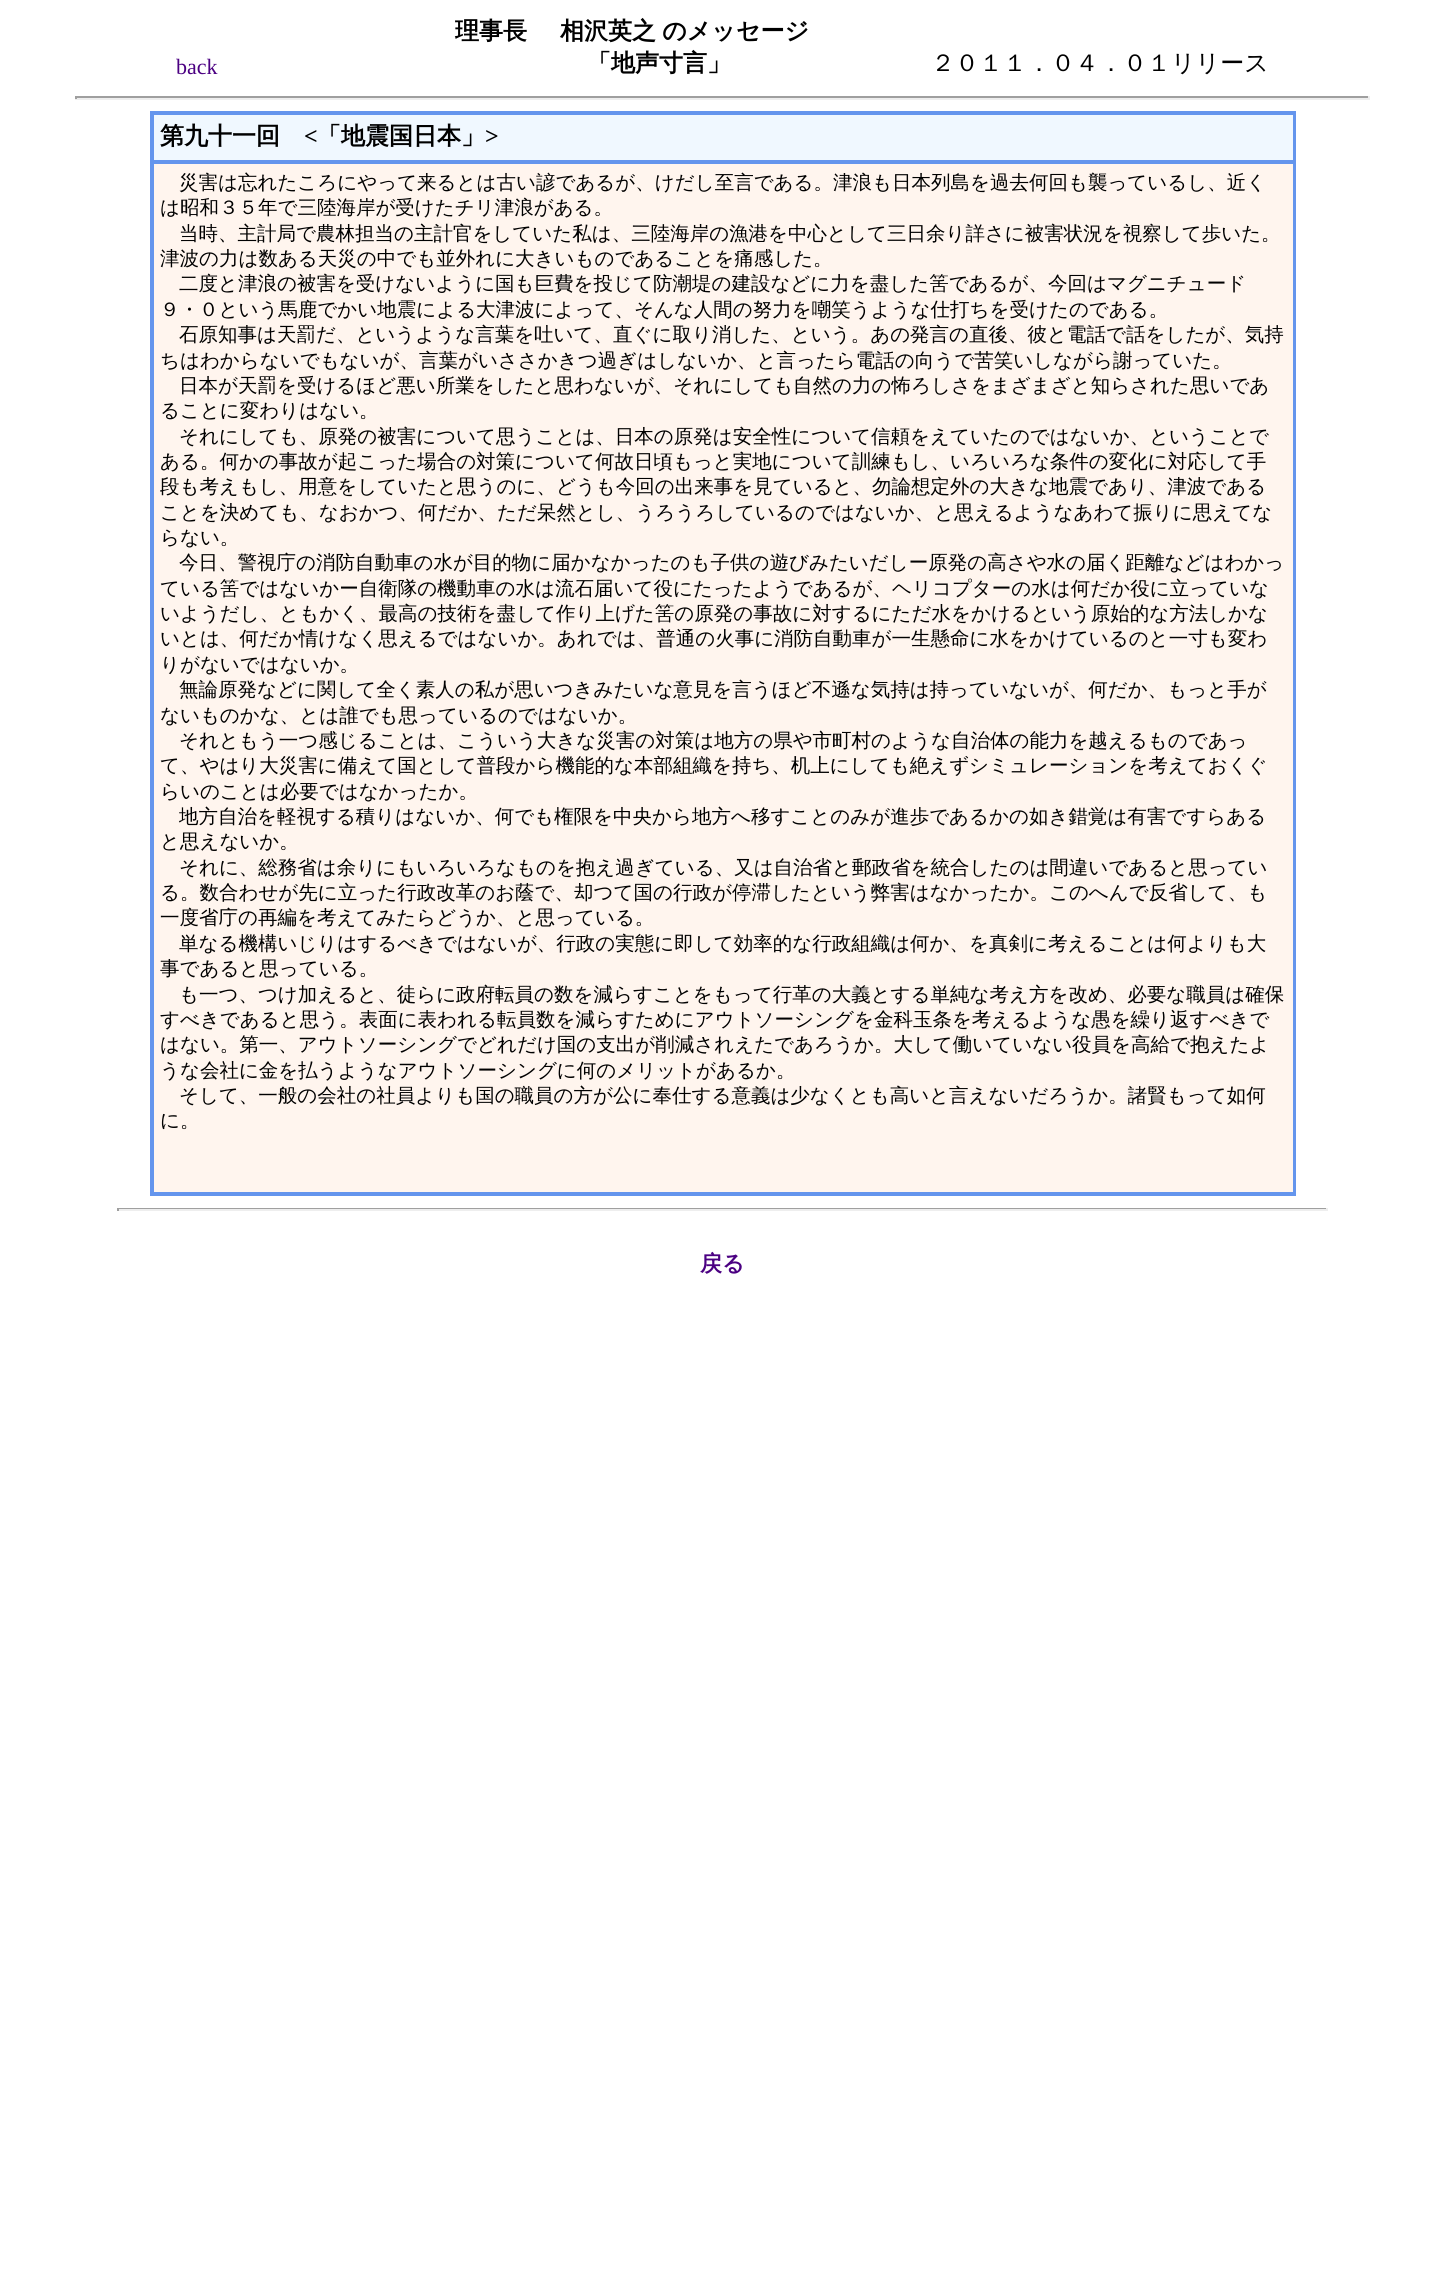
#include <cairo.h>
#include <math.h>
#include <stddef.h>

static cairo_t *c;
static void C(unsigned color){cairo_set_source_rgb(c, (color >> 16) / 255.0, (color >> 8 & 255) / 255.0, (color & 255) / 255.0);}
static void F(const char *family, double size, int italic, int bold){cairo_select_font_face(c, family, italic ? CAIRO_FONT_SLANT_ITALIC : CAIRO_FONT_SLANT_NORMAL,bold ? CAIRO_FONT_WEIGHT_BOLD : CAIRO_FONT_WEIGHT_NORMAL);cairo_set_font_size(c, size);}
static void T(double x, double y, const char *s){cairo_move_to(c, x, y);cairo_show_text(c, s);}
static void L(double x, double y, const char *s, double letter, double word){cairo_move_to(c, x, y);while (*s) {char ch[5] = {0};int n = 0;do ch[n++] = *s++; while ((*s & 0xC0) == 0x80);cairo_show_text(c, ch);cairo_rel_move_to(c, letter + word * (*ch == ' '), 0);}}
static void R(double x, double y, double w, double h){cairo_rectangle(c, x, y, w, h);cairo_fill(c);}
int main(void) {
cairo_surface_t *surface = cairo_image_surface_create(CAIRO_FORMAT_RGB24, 1444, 2289);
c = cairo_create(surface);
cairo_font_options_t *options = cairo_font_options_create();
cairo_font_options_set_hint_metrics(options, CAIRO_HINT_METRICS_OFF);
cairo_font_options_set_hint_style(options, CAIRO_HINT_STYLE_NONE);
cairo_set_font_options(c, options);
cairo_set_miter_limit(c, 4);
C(0xffffff);
cairo_paint(c);
F("Liberation Serif",22,0,0);
C(0x4b0082);
T(176,74,"back");
F("WenQuanYi Zen Hei",24,0,1);
C(0x000000);
T(455,39,"理事長");
L(560,39,"相沢英之 のメッセージ",0,-1);
T(587,71,"「地声寸言」");
F("WenQuanYi Zen Hei Medium",24,0,0);
T(931,71,"２０１１．０４．０１リリース");
C(0x9f9f9f);
R(75,96,1295,2);
C(0xeeeeee);
R(1368,96,2,3);
R(75,98,1295,2);
C(0x9f9f9f);
R(75,96,2,3);
cairo_rectangle(c,151,112,1144,1083);
C(0x6495ed);
cairo_stroke(c);
C(0xf0f8ff);
cairo_rectangle(c,153,114,1141,47);
cairo_fill_preserve(c);
C(0x6495ed);
cairo_stroke(c);
F("WenQuanYi Zen Hei",24,0,1);
C(0x000000);
T(160,144,"第九十一回");
F("Liberation Serif",24,0,1);
T(304,144,"<");
F("WenQuanYi Zen Hei",24,0,1);
T(317,144,"「地震国日本」");
F("Liberation Serif",24,0,1);
T(485,144,">");
C(0xfff5ee);
cairo_rectangle(c,153,163,1141,1030);
cairo_fill_preserve(c);
C(0x6495ed);
cairo_stroke(c);
F("WenQuanYi Zen Hei Medium",19.5,0,0);
C(0x000000);
T(179,189,"災害は忘れたころにやって来るとは古い諺であるが、けだし至言である。津浪も日本列島を過去何回も襲っているし、近く");
T(160,214,"は昭和３５年で三陸海岸が受けたチリ津浪がある。");
T(179,240,"当時、主計局で農林担当の主計官をしていた私は、三陸海岸の漁港を中心として三日余り詳さに被害状況を視察して歩いた。");
T(160,265,"津波の力は数ある天災の中でも並外れに大きいものであることを痛感した。");
T(179,290,"二度と津浪の被害を受けないように国も巨費を投じて防潮堤の建設などに力を盡した筈であるが、今回はマグニチュード");
T(160,316,"９・０という馬鹿でかい地震による大津波によって、そんな人間の努力を嘲笑うような仕打ちを受けたのである。");
T(179,341,"石原知事は天罰だ、というような言葉を吐いて、直ぐに取り消した、という。あの発言の直後、彼と電話で話をしたが、気持");
T(160,367,"ちはわからないでもないが、言葉がいささかきつ過ぎはしないか、と言ったら電話の向うで苦笑いしながら謝っていた。");
T(179,392,"日本が天罰を受けるほど悪い所業をしたと思わないが、それにしても自然の力の怖ろしさをまざまざと知らされた思いであ");
T(160,417,"ることに変わりはない。");
T(179,443,"それにしても、原発の被害について思うことは、日本の原発は安全性について信頼をえていたのではないか、ということで");
T(160,468,"ある。何かの事故が起こった場合の対策について何故日頃もっと実地について訓練もし、いろいろな条件の変化に対応して手");
T(160,493,"段も考えもし、用意をしていたと思うのに、どうも今回の出来事を見ていると、勿論想定外の大きな地震であり、津波である");
T(160,519,"ことを決めても、なおかつ、何だか、ただ呆然とし、うろうろしているのではないか、と思えるようなあわて振りに思えてな");
T(160,544,"らない。");
T(179,569,"今日、警視庁の消防自動車の水が目的物に届かなかったのも子供の遊びみたいだしー原発の高さや水の届く距離などはわかっ");
T(160,595,"ている筈ではないかー自衛隊の機動車の水は流石届いて役にたったようであるが、ヘリコプターの水は何だか役に立っていな");
T(160,620,"いようだし、ともかく、最高の技術を盡して作り上げた筈の原発の事故に対するにただ水をかけるという原始的な方法しかな");
T(160,645,"いとは、何だか情けなく思えるではないか。あれでは、普通の火事に消防自動車が一生懸命に水をかけているのと一寸も変わ");
T(160,671,"りがないではないか。");
T(179,696,"無論原発などに関して全く素人の私が思いつきみたいな意見を言うほど不遜な気持は持っていないが、何だか、もっと手が");
T(160,722,"ないものかな、とは誰でも思っているのではないか。");
T(179,747,"それともう一つ感じることは、こういう大きな災害の対策は地方の県や市町村のような自治体の能力を越えるものであっ");
T(160,772,"て、やはり大災害に備えて国として普段から機能的な本部組織を持ち、机上にしても絶えずシミュレーションを考えておくぐ");
T(160,798,"らいのことは必要ではなかったか。");
T(179,823,"地方自治を軽視する積りはないか、何でも権限を中央から地方へ移すことのみが進歩であるかの如き錯覚は有害ですらある");
T(160,848,"と思えないか。");
T(179,874,"それに、総務省は余りにもいろいろなものを抱え過ぎている、又は自治省と郵政省を統合したのは間違いであると思ってい");
T(160,899,"る。数合わせが先に立った行政改革のお蔭で、却つて国の行政が停滞したという弊害はなかったか。このへんで反省して、も");
T(160,924,"一度省庁の再編を考えてみたらどうか、と思っている。");
T(179,950,"単なる機構いじりはするべきではないが、行政の実態に即して効率的な行政組織は何か、を真剣に考えることは何よりも大");
T(160,975,"事であると思っている。");
T(179,1001,"も一つ、つけ加えると、徒らに政府転員の数を減らすことをもって行革の大義とする単純な考え方を改め、必要な職員は確保");
T(160,1026,"すべきであると思う。表面に表われる転員数を減らすためにアウトソーシングを金科玉条を考えるような愚を繰り返すべきで");
T(160,1051,"はない。第一、アウトソーシングでどれだけ国の支出が削減されえたであろうか。大して働いていない役員を高給で抱えたよ");
T(160,1077,"うな会社に金を払うようなアウトソーシングに何のメリットがあるか。");
T(179,1102,"そして、一般の会社の社員よりも国の職員の方が公に奉仕する意義は少なくとも高いと言えないだろうか。諸賢もって如何");
T(160,1127,"に。");
C(0x9f9f9f);
R(117,1208,1211,1);
C(0xeeeeee);
R(1326,1208,2,3);
R(117,1209,1211,2);
C(0x9f9f9f);
R(117,1208,2,3);
F("WenQuanYi Zen Hei",22,0,1);
C(0x4b0082);
T(700,1271,"戻る");
cairo_surface_write_to_png(surface, "o.png");
cairo_font_options_destroy(options);
cairo_destroy(c);
cairo_surface_destroy(surface);
return 0;
}
